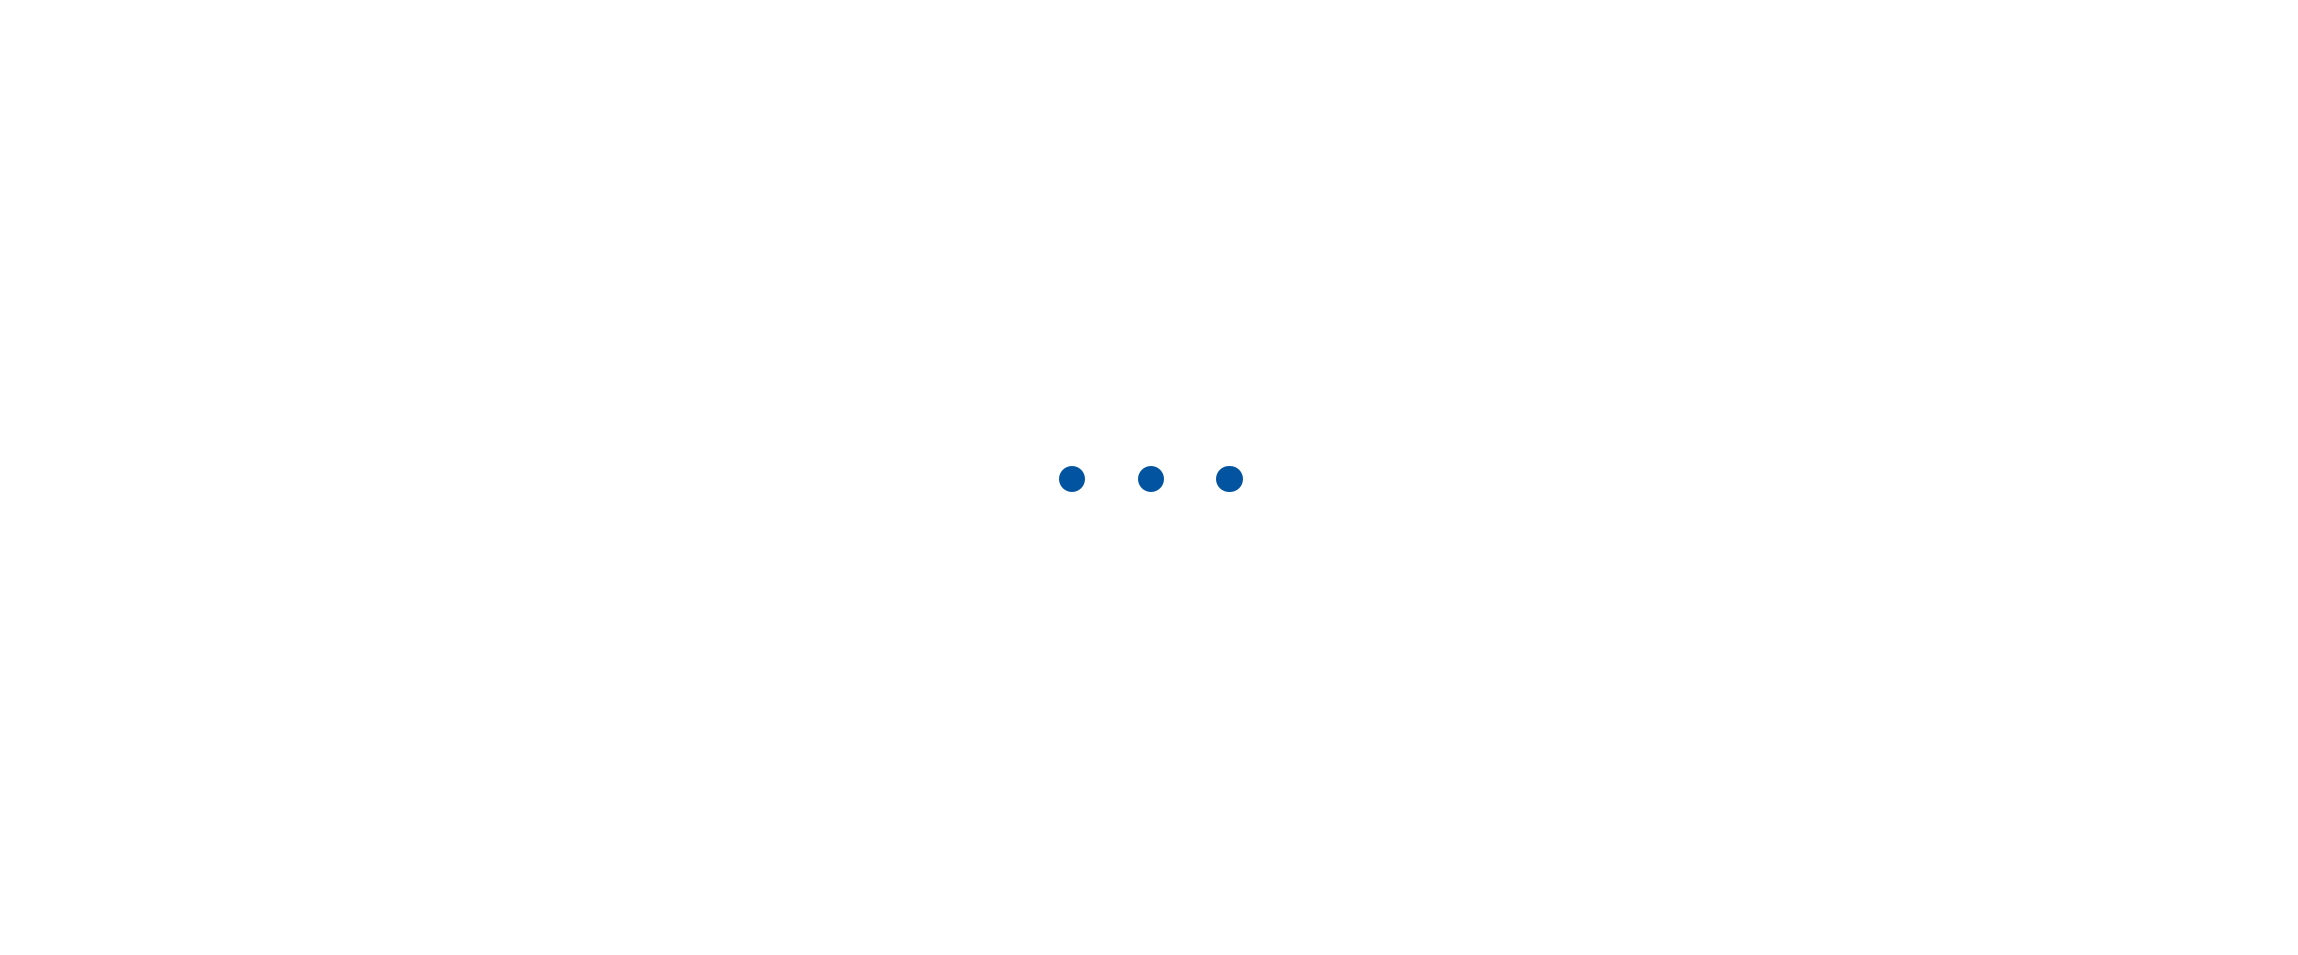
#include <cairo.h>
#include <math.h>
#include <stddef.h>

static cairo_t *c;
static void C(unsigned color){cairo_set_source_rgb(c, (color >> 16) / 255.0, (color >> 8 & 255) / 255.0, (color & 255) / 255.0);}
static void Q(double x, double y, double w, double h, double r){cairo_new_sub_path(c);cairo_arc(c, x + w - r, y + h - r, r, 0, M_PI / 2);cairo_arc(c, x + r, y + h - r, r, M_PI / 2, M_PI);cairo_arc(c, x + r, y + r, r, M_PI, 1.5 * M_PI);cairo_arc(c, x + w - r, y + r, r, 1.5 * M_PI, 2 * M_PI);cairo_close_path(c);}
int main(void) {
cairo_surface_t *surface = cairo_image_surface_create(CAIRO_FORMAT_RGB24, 2298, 955);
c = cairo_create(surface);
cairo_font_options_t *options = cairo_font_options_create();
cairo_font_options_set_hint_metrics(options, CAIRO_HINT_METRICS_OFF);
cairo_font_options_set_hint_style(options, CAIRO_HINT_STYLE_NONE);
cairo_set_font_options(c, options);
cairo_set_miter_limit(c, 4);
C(0xffffff);
cairo_paint(c);
C(0x0354a0);
cairo_arc(c,1072,479,13,0,2 * M_PI);
cairo_fill(c);
cairo_arc(c,1151,479,13,0,2 * M_PI);
cairo_fill(c);
Q(1216,466,27,26,13);
cairo_fill(c);
cairo_surface_write_to_png(surface, "o.png");
cairo_font_options_destroy(options);
cairo_destroy(c);
cairo_surface_destroy(surface);
return 0;
}
